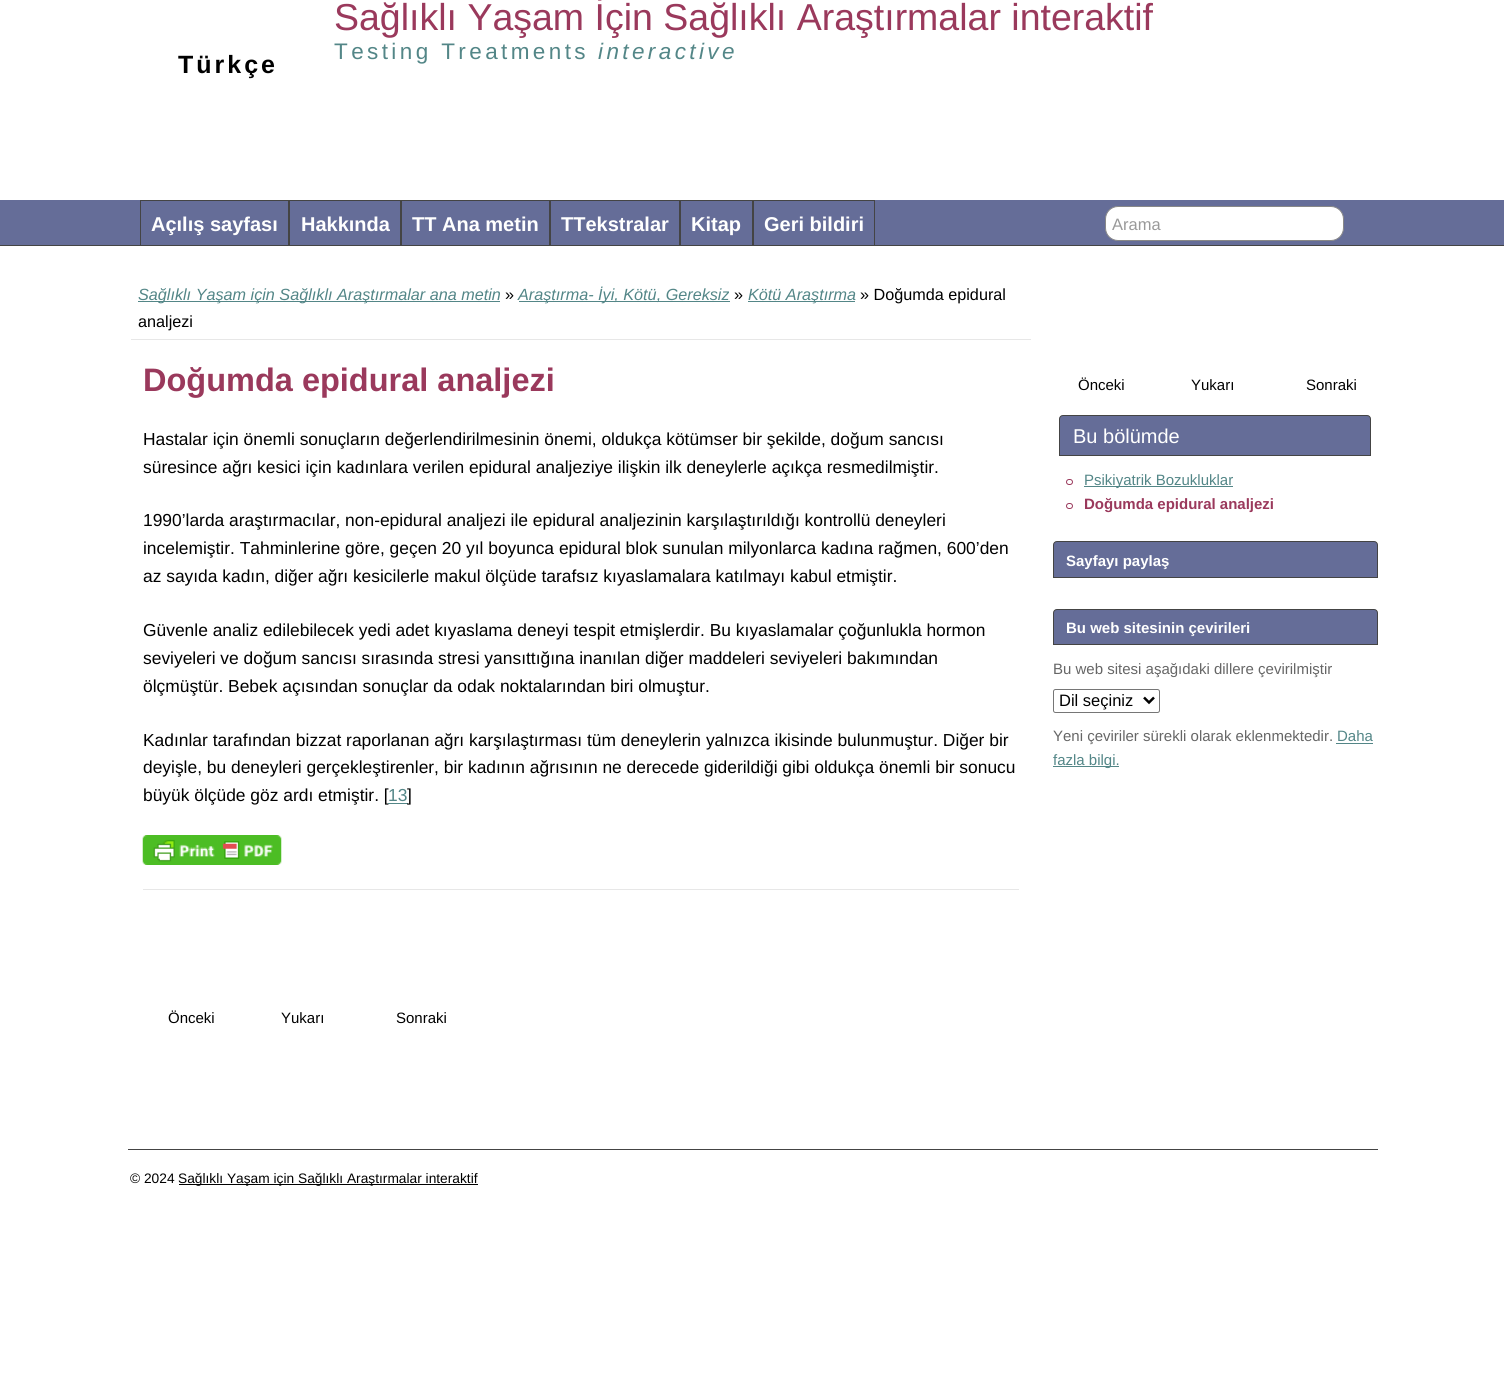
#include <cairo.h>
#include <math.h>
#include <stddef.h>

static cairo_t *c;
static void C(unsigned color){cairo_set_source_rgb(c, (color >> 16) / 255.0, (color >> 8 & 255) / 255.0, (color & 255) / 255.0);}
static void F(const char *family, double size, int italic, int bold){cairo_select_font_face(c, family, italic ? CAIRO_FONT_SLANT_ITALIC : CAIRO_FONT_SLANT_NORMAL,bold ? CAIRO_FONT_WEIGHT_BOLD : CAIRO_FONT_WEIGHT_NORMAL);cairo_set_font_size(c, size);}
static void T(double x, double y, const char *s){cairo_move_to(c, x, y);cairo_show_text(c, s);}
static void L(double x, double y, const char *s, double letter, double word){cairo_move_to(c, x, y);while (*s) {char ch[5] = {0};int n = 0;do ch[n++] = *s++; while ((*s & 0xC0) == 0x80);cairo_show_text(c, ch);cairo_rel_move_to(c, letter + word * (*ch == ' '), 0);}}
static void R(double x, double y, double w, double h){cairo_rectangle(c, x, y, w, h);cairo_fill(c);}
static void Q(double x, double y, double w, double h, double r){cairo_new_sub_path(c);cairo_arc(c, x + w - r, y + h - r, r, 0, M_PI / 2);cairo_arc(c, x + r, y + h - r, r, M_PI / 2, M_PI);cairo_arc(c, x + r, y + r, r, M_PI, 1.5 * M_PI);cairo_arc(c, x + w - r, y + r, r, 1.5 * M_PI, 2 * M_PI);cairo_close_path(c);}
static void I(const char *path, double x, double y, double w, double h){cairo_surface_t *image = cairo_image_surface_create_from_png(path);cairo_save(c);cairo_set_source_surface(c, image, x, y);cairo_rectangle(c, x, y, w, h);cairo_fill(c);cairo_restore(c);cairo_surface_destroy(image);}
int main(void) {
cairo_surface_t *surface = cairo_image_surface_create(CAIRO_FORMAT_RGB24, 1504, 1385);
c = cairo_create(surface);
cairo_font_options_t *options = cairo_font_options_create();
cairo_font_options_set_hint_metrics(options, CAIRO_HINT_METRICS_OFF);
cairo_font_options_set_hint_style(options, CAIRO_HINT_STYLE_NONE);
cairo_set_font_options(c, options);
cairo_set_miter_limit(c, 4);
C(0xffffff);
cairo_paint(c);
F("Liberation Sans",37.5,0,0);
C(0x9a395c);
T(334,30,"Sağlıklı Yaşam İçin Sağlıklı Araştırmalar interaktif");
F("Liberation Sans",22.5,0,0);
C(0x538687);
L(334,59,"Testing Treatments",3.4,0);
F("Liberation Sans",22.5,1,0);
L(598,59,"interactive",3.4,0);
F("Liberation Sans",25,0,1);
C(0x000000);
L(178,73,"Türkçe",3,0);
C(0x656d98);
R(0,200,1504,45);
C(0x444444);
R(0,245,1504,1);
cairo_rectangle(c,140.5,200.5,148,45);
cairo_set_line_width(c,1);
cairo_stroke(c);
F("Liberation Sans",20,0,1);
C(0xffffff);
T(151,231,"Açılış sayfası");
cairo_rectangle(c,289.5,200.5,111,45);
C(0x444444);
cairo_stroke(c);
C(0xffffff);
T(301,231,"Hakkında");
cairo_rectangle(c,401.5,200.5,148,45);
C(0x444444);
cairo_stroke(c);
C(0xffffff);
T(412,231,"TT Ana metin");
cairo_rectangle(c,550.5,200.5,129,45);
C(0x444444);
cairo_stroke(c);
C(0xffffff);
T(561,231,"TTekstralar");
cairo_rectangle(c,680.5,200.5,72,45);
C(0x444444);
cairo_stroke(c);
C(0xffffff);
T(691,231,"Kitap");
cairo_rectangle(c,753.5,200.5,121,45);
C(0x444444);
cairo_stroke(c);
C(0xffffff);
T(764,231,"Geri bildiri");
Q(1105.5,206.5,238,34,12.5);
cairo_fill_preserve(c);
C(0x888888);
cairo_stroke(c);
F("Liberation Sans",16.5,0,0);
C(0x999999);
T(1112,230,"Arama");
C(0xe7e7e7);
R(131,339,900,1);
C(0x538687);
R(138,301,362,1);
F("Liberation Sans",16.2,1,0);
T(138,300,"Sağlıklı Yaşam için Sağlıklı Araştırmalar ana metin");
F("Liberation Sans",16.2,0,0);
C(0x000000);
T(505,300,"»");
C(0x538687);
R(519,301,211,1);
F("Liberation Sans",16.2,1,0);
T(518,300,"Araştırma- İyi, Kötü, Gereksiz");
F("Liberation Sans",16.2,0,0);
C(0x000000);
T(734,300,"»");
C(0x538687);
R(748,301,107,1);
F("Liberation Sans",16.2,1,0);
T(748,300,"Kötü Araştırma");
F("Liberation Sans",16.2,0,0);
C(0x000000);
T(860,300,"» Doğumda epidural");
T(138,327,"analjezi");
F("Liberation Sans",32.5,0,1);
C(0x9a395c);
T(143,391,"Doğumda epidural analjezi");
F("Liberation Sans",17.4,0,0);
C(0x000000);
T(143,445,"Hastalar için önemli sonuçların değerlendirilmesinin önemi, oldukça kötümser bir şekilde, doğum sancısı");
T(143,473,"süresince ağrı kesici için kadınlara verilen epidural analjeziye ilişkin ilk deneylerle açıkça resmedilmiştir.");
T(143,526,"1990’larda araştırmacılar, non-epidural analjezi ile epidural analjezinin karşılaştırıldığı kontrollü deneyleri");
T(143,554,"incelemiştir. Tahminlerine göre, geçen 20 yıl boyunca epidural blok sunulan milyonlarca kadına rağmen, 600’den");
T(143,582,"az sayıda kadın, diğer ağrı kesicilerle makul ölçüde tarafsız kıyaslamalara katılmayı kabul etmiştir.");
T(143,636,"Güvenle analiz edilebilecek yedi adet kıyaslama deneyi tespit etmişlerdir. Bu kıyaslamalar çoğunlukla hormon");
T(143,664,"seviyeleri ve doğum sancısı sırasında stresi yansıttığına inanılan diğer maddeleri seviyeleri bakımından");
T(143,692,"ölçmüştür. Bebek açısından sonuçlar da odak noktalarından biri olmuştur.");
T(143,746,"Kadınlar tarafından bizzat raporlanan ağrı karşılaştırması tüm deneylerin yalnızca ikisinde bulunmuştur. Diğer bir");
T(143,773,"deyişle, bu deneyleri gerçekleştirenler, bir kadının ağrısının ne derecede giderildiği gibi oldukça önemli bir sonucu");
T(143,801,"büyük ölçüde göz ardı etmiştir. [");
C(0x538687);
T(388,801,"13");
R(388,803,20,1);
C(0x000000);
T(407,801,"]");
I("1.png",142,835,140,30);
C(0xe7e7e7);
R(143,889,876,1);
F("Liberation Sans",15,0,0);
C(0x000000);
T(168,1023,"Önceki");
T(281,1023,"Yukarı");
T(396,1023,"Sonraki");
T(1078,390,"Önceki");
T(1191,390,"Yukarı");
T(1306,390,"Sonraki");
C(0x656d98);
cairo_new_path(c);
cairo_move_to(c,1063,415.5);
cairo_line_to(c,1367,415.5);
cairo_curve_to(c,1369,415.5,1370.5,417,1370.5,419);
cairo_line_to(c,1370.5,455.5);
cairo_line_to(c,1059.5,455.5);
cairo_line_to(c,1059.5,419);
cairo_curve_to(c,1059.5,417,1061,415.5,1063,415.5);
cairo_close_path(c);
cairo_fill_preserve(c);
C(0x444444);
cairo_stroke(c);
F("Liberation Sans",20,0,0);
C(0xffffff);
T(1073,443,"Bu bölümde");
Q(1066.5,479.5,6,5,2.5);
C(0x9a395c);
cairo_stroke(c);
C(0x538687);
R(1084,486,149,1);
F("Liberation Sans",15,0,0);
T(1084,485,"Psikiyatrik Bozukluklar");
Q(1066.5,503.5,6,5,2.5);
C(0x9a395c);
cairo_stroke(c);
F("Liberation Sans",15,0,1);
T(1084,509,"Doğumda epidural analjezi");
C(0x656d98);
cairo_new_path(c);
cairo_move_to(c,1057,541.5);
cairo_line_to(c,1374,541.5);
cairo_curve_to(c,1376,541.5,1377.5,543,1377.5,545);
cairo_line_to(c,1377.5,577.5);
cairo_line_to(c,1053.5,577.5);
cairo_line_to(c,1053.5,545);
cairo_curve_to(c,1053.5,543,1055,541.5,1057,541.5);
cairo_close_path(c);
cairo_fill_preserve(c);
C(0x444444);
cairo_stroke(c);
C(0xffffff);
T(1066,566,"Sayfayı paylaş");
C(0x656d98);
cairo_new_path(c);
cairo_move_to(c,1057,609.5);
cairo_line_to(c,1374,609.5);
cairo_curve_to(c,1376,609.5,1377.5,611,1377.5,613);
cairo_line_to(c,1377.5,644.5);
cairo_line_to(c,1053.5,644.5);
cairo_line_to(c,1053.5,613);
cairo_curve_to(c,1053.5,611,1055,609.5,1057,609.5);
cairo_close_path(c);
cairo_fill_preserve(c);
C(0x444444);
cairo_stroke(c);
C(0xffffff);
T(1066,633,"Bu web sitesinin çevirileri");
F("Liberation Sans",15,0,0);
C(0x666666);
T(1053,674,"Bu web sitesi aşağıdaki dillere çevirilmiştir");
Q(1053.5,689.5,106,23,2);
C(0x767676);
cairo_stroke(c);
cairo_new_path(c);
cairo_move_to(c,1144,697.5);
cairo_line_to(c,1149,702.5);
cairo_line_to(c,1154,697.5);
C(0x000000);
cairo_set_line_width(c,2.5);
cairo_stroke(c);
F("Liberation Sans",16.5,0,0);
T(1059,706,"Dil seçiniz");
F("Liberation Sans",15,0,0);
C(0x666666);
T(1053,741,"Yeni çeviriler sürekli olarak eklenmektedir.");
C(0x538687);
T(1337,741,"Daha");
R(1336,743,37,1);
R(1053,766,66,1);
T(1053,765,"fazla bilgi.");
C(0x444444);
R(128,1149,1250,1);
F("Liberation Sans",13.75,0,0);
C(0x000000);
T(130,1183,"© 2024");
R(179,1184,299,1);
T(178,1183,"Sağlıklı Yaşam için Sağlıklı Araştırmalar interaktif");
cairo_surface_write_to_png(surface, "o.png");
cairo_font_options_destroy(options);
cairo_destroy(c);
cairo_surface_destroy(surface);
return 0;
}
